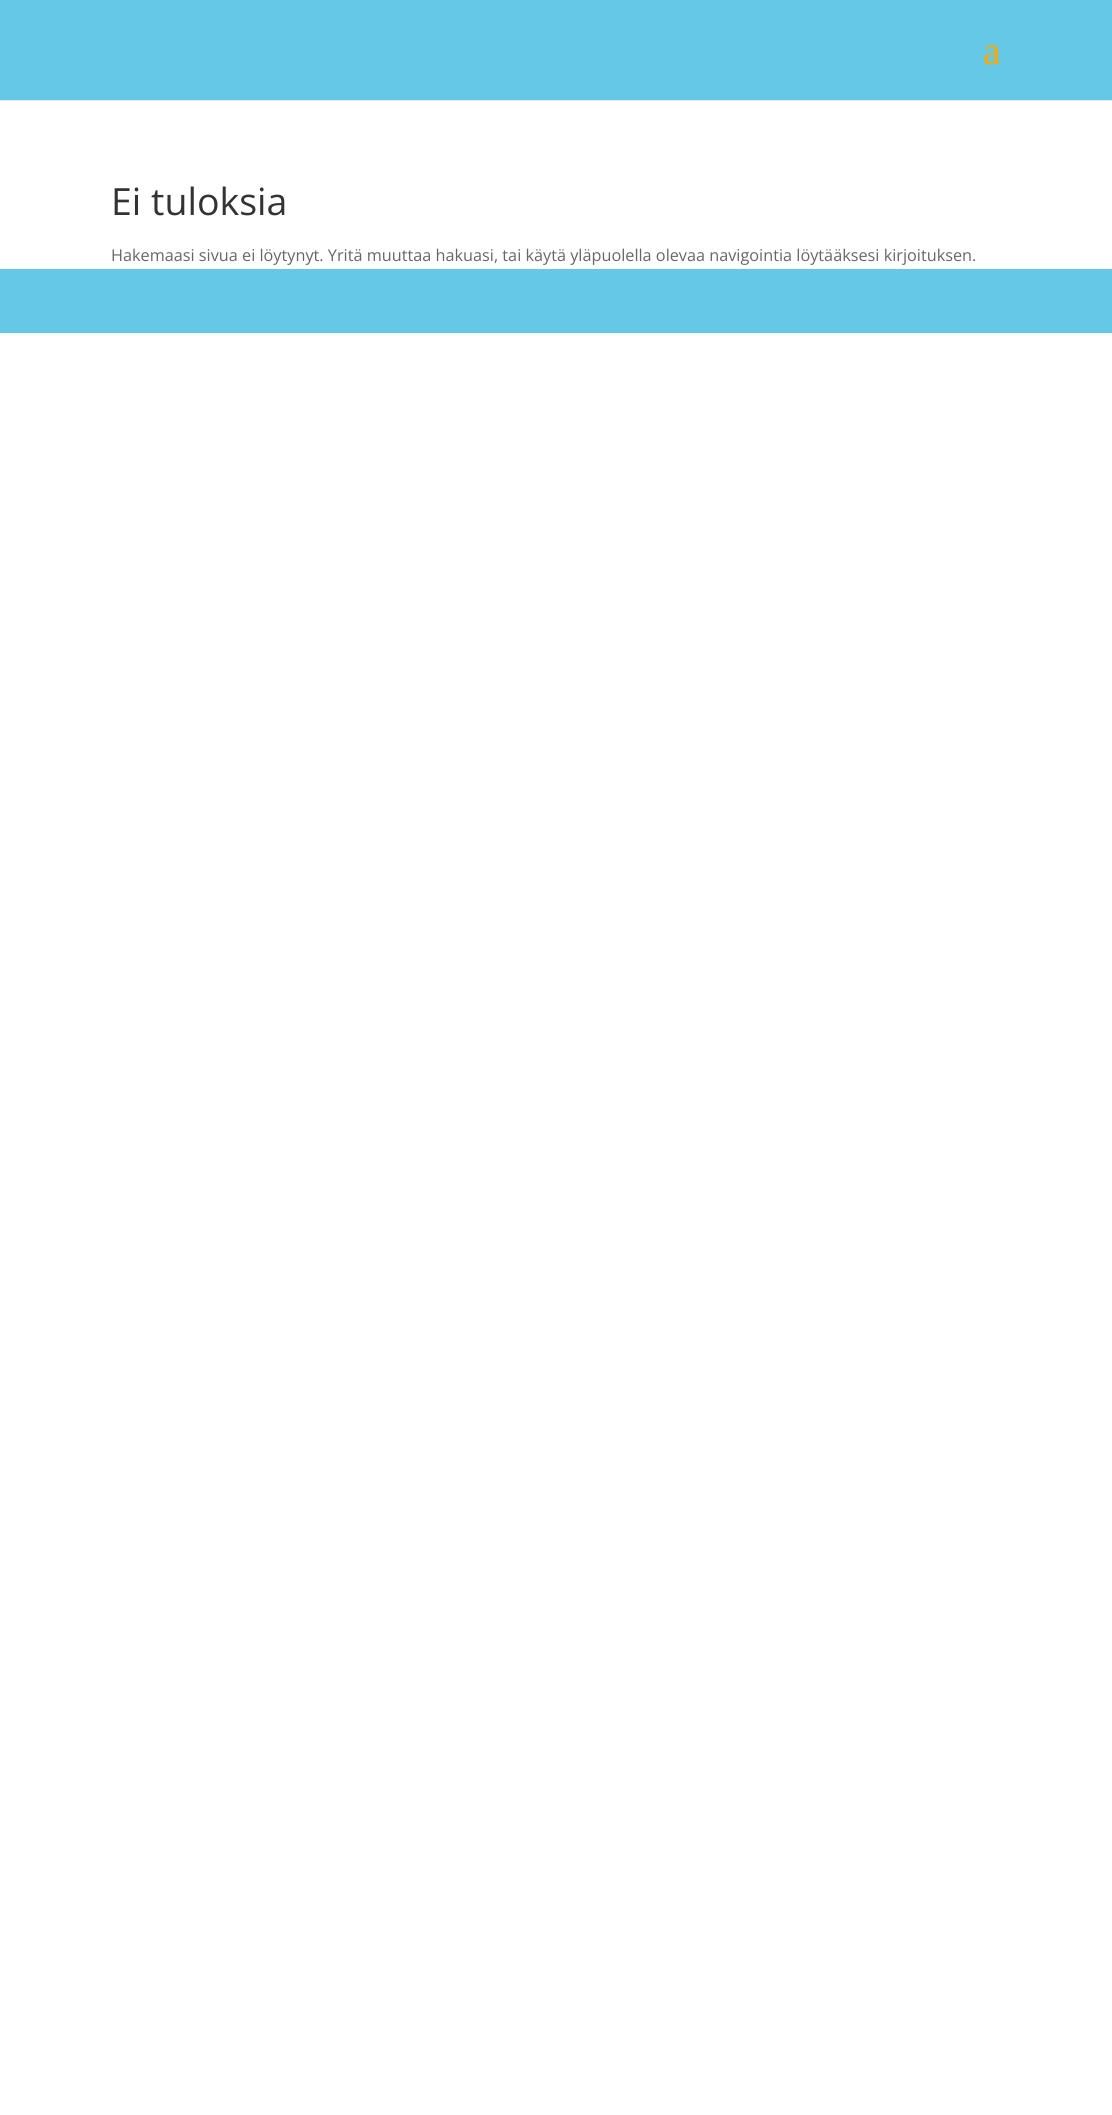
#include <cairo.h>
#include <math.h>
#include <stddef.h>

static cairo_t *c;
static void C(unsigned color){cairo_set_source_rgb(c, (color >> 16) / 255.0, (color >> 8 & 255) / 255.0, (color & 255) / 255.0);}
static void F(const char *family, double size, int italic, int bold){cairo_select_font_face(c, family, italic ? CAIRO_FONT_SLANT_ITALIC : CAIRO_FONT_SLANT_NORMAL,bold ? CAIRO_FONT_WEIGHT_BOLD : CAIRO_FONT_WEIGHT_NORMAL);cairo_set_font_size(c, size);}
static void T(double x, double y, const char *s){cairo_move_to(c, x, y);cairo_show_text(c, s);}
static void R(double x, double y, double w, double h){cairo_rectangle(c, x, y, w, h);cairo_fill(c);}
int main(void) {
cairo_surface_t *surface = cairo_image_surface_create(CAIRO_FORMAT_RGB24, 1112, 2115);
c = cairo_create(surface);
cairo_font_options_t *options = cairo_font_options_create();
cairo_font_options_set_hint_metrics(options, CAIRO_HINT_METRICS_OFF);
cairo_font_options_set_hint_style(options, CAIRO_HINT_STYLE_NONE);
cairo_set_font_options(c, options);
cairo_set_miter_limit(c, 4);
C(0xffffff);
cairo_paint(c);
C(0xe6e6e6);
cairo_new_path(c);
cairo_move_to(c,0,100);
cairo_line_to(c,0,101);
cairo_line_to(c,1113,101);
cairo_line_to(c,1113,1);
cairo_line_to(c,1112,1);
cairo_line_to(c,1112,100);
cairo_close_path(c);
cairo_fill(c);
C(0x64c8e6);
R(0,0,1112,100);
F("Liberation Serif",40,0,0);
C(0xf9aa00);
T(983,64,"a");
F("Open Sans",37.5,0,0);
C(0x333333);
T(111,215,"Ei tuloksia");
F("Open Sans",16.25,0,0);
C(0x666666);
T(111,261,"Hakemaasi sivua ei löytynyt. Yritä muuttaa hakuasi, tai käytä yläpuolella olevaa navigointia löytääksesi kirjoituksen.");
C(0x64c8e6);
R(0,269,1112,64);
cairo_surface_write_to_png(surface, "o.png");
cairo_font_options_destroy(options);
cairo_destroy(c);
cairo_surface_destroy(surface);
return 0;
}
